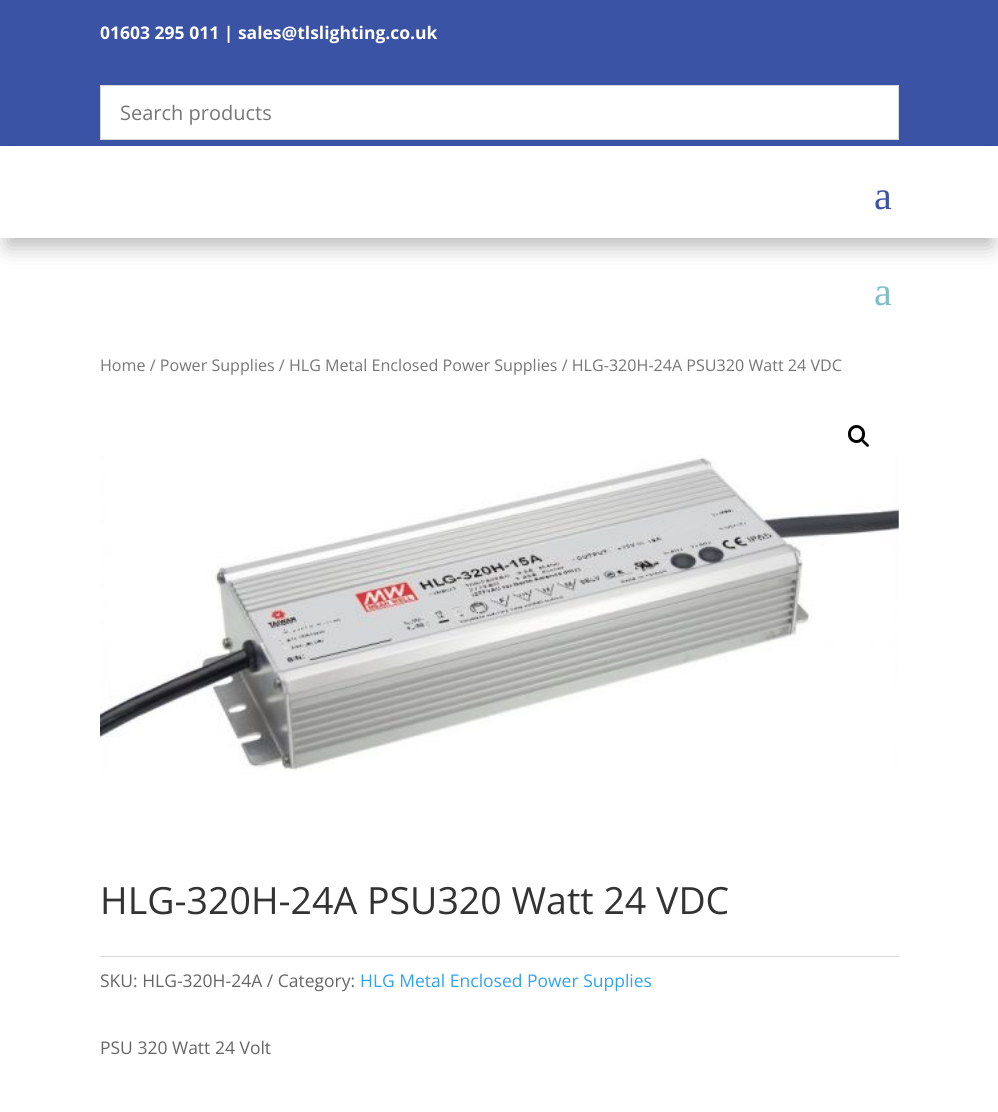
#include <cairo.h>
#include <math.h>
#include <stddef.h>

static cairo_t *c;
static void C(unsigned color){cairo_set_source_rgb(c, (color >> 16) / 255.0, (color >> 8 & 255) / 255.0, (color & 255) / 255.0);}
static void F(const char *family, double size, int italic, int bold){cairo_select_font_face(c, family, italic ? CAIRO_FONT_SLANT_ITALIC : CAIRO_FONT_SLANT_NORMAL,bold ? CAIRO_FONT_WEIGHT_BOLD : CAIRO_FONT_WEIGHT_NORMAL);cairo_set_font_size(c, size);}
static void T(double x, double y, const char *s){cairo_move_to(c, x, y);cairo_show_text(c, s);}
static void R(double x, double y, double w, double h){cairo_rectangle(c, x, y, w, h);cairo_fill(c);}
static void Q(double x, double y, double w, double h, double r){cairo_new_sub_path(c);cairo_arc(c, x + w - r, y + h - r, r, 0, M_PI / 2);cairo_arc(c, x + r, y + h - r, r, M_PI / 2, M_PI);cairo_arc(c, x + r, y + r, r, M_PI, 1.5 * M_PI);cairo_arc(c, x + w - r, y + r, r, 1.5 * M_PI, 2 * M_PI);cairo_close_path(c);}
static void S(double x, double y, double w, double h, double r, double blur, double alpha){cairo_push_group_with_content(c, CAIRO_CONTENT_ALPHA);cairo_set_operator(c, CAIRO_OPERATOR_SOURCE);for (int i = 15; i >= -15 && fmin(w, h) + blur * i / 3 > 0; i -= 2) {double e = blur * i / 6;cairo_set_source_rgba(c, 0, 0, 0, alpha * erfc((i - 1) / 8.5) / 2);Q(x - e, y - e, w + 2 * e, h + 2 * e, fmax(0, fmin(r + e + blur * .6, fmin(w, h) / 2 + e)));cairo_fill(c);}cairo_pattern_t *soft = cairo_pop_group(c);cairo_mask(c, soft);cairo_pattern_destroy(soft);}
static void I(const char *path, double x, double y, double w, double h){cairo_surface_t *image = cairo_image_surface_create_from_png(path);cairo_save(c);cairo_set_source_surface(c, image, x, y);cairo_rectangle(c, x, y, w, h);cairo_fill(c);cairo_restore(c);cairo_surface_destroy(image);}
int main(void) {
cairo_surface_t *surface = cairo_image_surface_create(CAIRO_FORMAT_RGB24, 998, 1112);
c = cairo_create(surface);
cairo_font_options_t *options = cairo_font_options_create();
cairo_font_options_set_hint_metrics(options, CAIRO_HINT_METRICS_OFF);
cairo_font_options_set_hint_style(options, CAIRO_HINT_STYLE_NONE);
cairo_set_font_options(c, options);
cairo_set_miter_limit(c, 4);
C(0xffffff);
cairo_paint(c);
C(0x3a53a5);
R(0,0,998,146);
F("Open Sans",17.5,0,1);
C(0xffffff);
T(100,39,"01603 295 011 | sales@tlslighting.co.uk");
cairo_rectangle(c,100.5,85.5,798,54);
cairo_fill_preserve(c);
C(0xd8d8d8);
cairo_set_line_width(c,1);
cairo_stroke(c);
F("Open Sans",20,0,0);
C(0x767676);
T(120,120,"Search products");
C(0x000000);
S(8,169,983,76,0,11,.3);
C(0xffffff);
R(0,149,998,89);
F("Liberation Serif",40,0,0);
C(0x3a53a5);
T(874,209,"a");
C(0x7ebec5);
T(874,305,"a");
F("Open Sans",16.1,0,0);
C(0x767676);
T(100,371,"Home / Power Supplies / HLG Metal Enclosed Power Supplies / HLG-320H-24A PSU320 Watt 24 VDC");
Q(849.5,426.5,14,15,7);
C(0x000000);
cairo_set_line_width(c,3);
cairo_stroke(c);
cairo_new_path(c);
cairo_move_to(c,861.5,439.5);
cairo_curve_to(c,863,438,865,441.5,866,442);
cairo_curve_to(c,867,443,870,445,868.5,446.5);
cairo_curve_to(c,867,448,865,444.5,864,444);
cairo_curve_to(c,863.5,443,860,441,861.5,439.5);
cairo_close_path(c);
cairo_fill(c);
I("1.png",100,455,799,317);
F("Open Sans",37.5,0,0);
C(0x333333);
T(100,914,"HLG-320H-24A PSU320 Watt 24 VDC");
C(0xdadada);
R(100,956,799,1);
F("Open Sans",17.5,0,0);
C(0x666666);
T(100,987,"SKU: HLG-320H-24A / Category:");
C(0x2ea3f2);
T(360,987,"HLG Metal Enclosed Power Supplies");
C(0x666666);
T(100,1054,"PSU 320 Watt 24 Volt");
cairo_surface_write_to_png(surface, "o.png");
cairo_font_options_destroy(options);
cairo_destroy(c);
cairo_surface_destroy(surface);
return 0;
}
